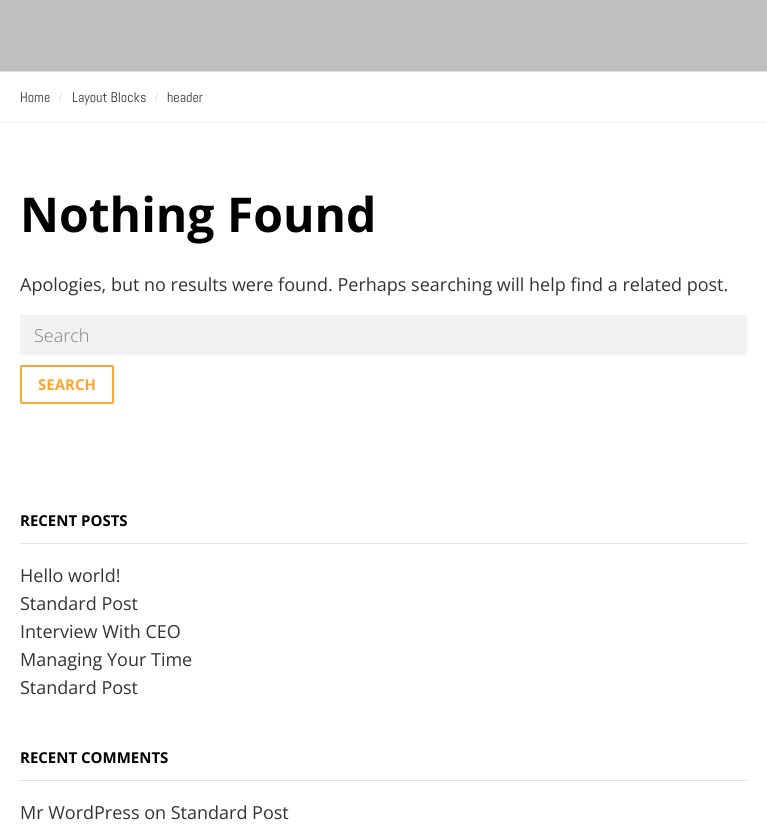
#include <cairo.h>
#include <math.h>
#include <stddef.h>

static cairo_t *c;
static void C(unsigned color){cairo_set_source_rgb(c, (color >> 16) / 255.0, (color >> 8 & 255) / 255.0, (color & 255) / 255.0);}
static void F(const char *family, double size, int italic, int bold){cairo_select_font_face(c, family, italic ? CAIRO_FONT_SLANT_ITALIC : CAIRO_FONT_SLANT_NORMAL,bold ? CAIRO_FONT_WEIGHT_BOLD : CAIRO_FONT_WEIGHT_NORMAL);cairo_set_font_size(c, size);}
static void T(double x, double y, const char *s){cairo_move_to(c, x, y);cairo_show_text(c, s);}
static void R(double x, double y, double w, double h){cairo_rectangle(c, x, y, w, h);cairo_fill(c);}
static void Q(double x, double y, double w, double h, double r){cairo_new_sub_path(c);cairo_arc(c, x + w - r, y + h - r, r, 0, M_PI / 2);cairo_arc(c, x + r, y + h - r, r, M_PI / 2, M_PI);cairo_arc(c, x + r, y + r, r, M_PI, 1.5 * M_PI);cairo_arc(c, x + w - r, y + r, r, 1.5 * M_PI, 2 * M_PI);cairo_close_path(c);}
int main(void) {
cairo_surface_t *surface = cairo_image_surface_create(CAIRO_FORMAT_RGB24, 767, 831);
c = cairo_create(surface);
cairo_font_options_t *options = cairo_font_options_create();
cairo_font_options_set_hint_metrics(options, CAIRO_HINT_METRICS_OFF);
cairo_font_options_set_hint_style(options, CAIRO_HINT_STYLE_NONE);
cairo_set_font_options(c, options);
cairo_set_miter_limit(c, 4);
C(0xffffff);
cairo_paint(c);
C(0xbfbfbf);
R(0,0,767,71);
C(0xe1e1e1);
R(0,71,767,1);
C(0xeeeeee);
R(0,122,767,1);
F("Abel",14,0,0);
C(0x333333);
T(20,102,"Home");
F("Liberation Serif",12,0,0);
C(0xcdcdd1);
T(59,101,"/");
F("Abel",14,0,0);
C(0x333333);
T(72,102,"Layout Blocks");
F("Liberation Serif",12,0,0);
C(0xcdcdd1);
T(155,101,"/");
F("Abel",14,0,0);
C(0x333333);
T(167,102,"header");
F("Open Sans",48,0,1);
C(0x000000);
T(20,232,"Nothing Found");
F("Open Sans",18,0,0);
C(0x333333);
T(20,291,"Apologies, but no results were found. Perhaps searching will help find a related post.");
C(0xf2f2f2);
R(20,315,727,40);
F("Open Sans Light",18,0,0);
C(0x7b8085);
T(34,342,"Search");
Q(21,366,92,37,1);
C(0xfaa633);
cairo_stroke(c);
F("Open Sans",15,0,1);
T(38,390,"SEARCH");
C(0xe1e1e1);
R(20,543,727,1);
C(0x000000);
T(20,526,"RECENT POSTS");
F("Open Sans",18,0,0);
C(0x333333);
T(20,582,"Hello world!");
T(20,610,"Standard Post");
T(20,638,"Interview With CEO");
T(20,666,"Managing Your Time");
T(20,694,"Standard Post");
C(0xe1e1e1);
R(20,780,727,1);
F("Open Sans",15,0,1);
C(0x000000);
T(20,763,"RECENT COMMENTS");
F("Open Sans",18,0,0);
C(0x333333);
T(20,819,"Mr WordPress on Standard Post");
cairo_surface_write_to_png(surface, "o.png");
cairo_font_options_destroy(options);
cairo_destroy(c);
cairo_surface_destroy(surface);
return 0;
}
